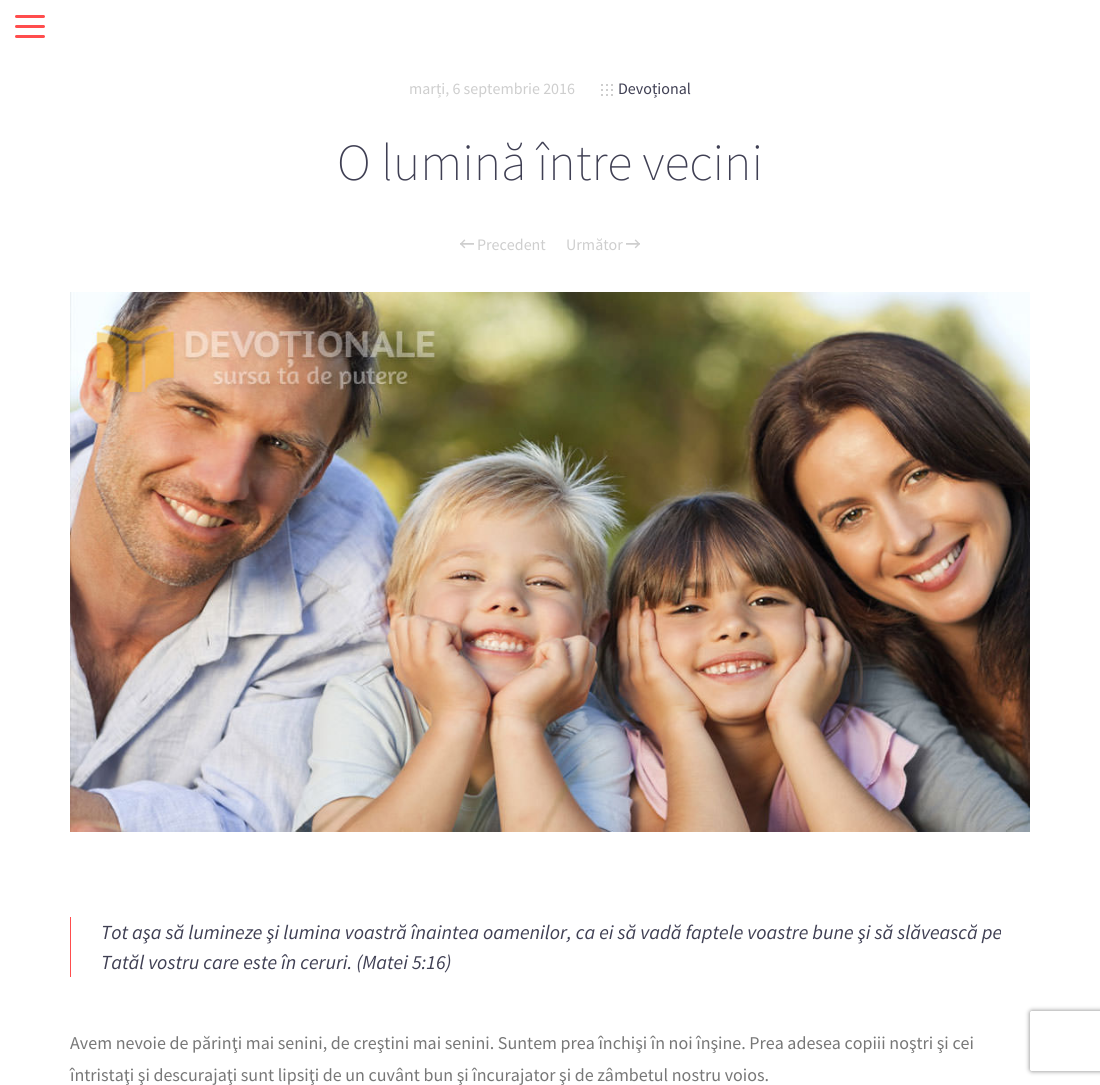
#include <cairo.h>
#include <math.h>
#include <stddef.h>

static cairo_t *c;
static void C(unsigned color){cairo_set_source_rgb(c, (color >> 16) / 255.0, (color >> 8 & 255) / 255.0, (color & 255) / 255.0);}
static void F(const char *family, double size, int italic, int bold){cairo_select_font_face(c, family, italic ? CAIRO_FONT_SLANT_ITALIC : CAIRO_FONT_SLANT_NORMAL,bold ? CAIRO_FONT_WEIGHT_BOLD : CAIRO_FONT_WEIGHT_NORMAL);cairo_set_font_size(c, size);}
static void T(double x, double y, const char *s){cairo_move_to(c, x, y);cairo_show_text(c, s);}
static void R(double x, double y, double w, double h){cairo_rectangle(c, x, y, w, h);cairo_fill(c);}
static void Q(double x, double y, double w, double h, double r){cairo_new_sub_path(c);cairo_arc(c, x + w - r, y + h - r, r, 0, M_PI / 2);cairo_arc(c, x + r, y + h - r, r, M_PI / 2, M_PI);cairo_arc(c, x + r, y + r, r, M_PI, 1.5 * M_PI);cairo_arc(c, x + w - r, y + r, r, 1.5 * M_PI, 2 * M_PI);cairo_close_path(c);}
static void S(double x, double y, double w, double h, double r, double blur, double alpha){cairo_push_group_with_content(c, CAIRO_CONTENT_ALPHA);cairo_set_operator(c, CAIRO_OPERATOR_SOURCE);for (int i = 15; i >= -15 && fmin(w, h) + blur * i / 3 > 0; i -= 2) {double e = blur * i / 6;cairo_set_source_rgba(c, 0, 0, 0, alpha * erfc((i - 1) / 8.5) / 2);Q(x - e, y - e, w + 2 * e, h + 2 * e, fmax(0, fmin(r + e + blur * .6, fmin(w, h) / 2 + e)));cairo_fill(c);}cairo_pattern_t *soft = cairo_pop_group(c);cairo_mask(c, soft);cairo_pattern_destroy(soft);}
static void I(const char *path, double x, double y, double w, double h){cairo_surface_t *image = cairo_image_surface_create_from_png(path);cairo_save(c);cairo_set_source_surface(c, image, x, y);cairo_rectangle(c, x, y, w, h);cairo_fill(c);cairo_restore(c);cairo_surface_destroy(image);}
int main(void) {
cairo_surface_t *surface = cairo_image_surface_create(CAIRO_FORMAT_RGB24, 1100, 1085);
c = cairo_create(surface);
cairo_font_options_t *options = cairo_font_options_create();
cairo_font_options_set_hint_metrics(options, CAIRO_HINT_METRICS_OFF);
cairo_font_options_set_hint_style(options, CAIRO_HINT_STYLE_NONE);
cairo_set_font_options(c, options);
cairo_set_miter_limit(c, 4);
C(0xffffff);
cairo_paint(c);
C(0xff4d4d);
Q(15,25,30,3,1.5);
cairo_fill(c);
Q(15,15,30,3,1.5);
cairo_fill(c);
Q(15,35,30,3,1.5);
cairo_fill(c);
F("Source Sans Pro",16,0,0);
C(0xcecece);
T(409,94,"marți, 6 septembrie 2016");
I("1.png",601,84,12,12);
C(0x3f3f53);
T(618,94,"Devoțional");
F("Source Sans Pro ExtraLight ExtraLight",52,0,0);
T(337,180,"O lumină între vecini");
I("2.png",460,239,14,10);
F("Source Sans Pro",16,0,0);
C(0xcecece);
T(477,250,"Precedent");
T(566,250,"Următor");
I("3.png",626,239,14,10);
I("4.png",70,292,960,540);
C(0xff4d4d);
R(70,917,1,60);
F("Source Sans Pro",20,1,0);
C(0x3f3f53);
T(101,939,"Tot aşa să lumineze şi lumina voastră înaintea oamenilor, ca ei să vadă faptele voastre bune şi să slăvească pe");
T(101,969,"Tatăl vostru care este în ceruri. (Matei 5:16)");
F("Source Sans Pro",18,0,0);
C(0x777777);
T(70,1049,"Avem nevoie de părinţi mai senini, de creştini mai senini. Suntem prea închişi în noi înşine. Prea adesea copiii noştri şi cei");
T(70,1081,"întristaţi şi descurajaţi sunt lipsiţi de un cuvânt bun şi încurajator şi de zâmbetul nostru voios.");
cairo_save(c);
cairo_set_fill_rule(c,CAIRO_FILL_RULE_EVEN_ODD);
cairo_new_path(c);
cairo_move_to(c,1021,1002);
cairo_line_to(c,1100,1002);
cairo_line_to(c,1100,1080);
cairo_line_to(c,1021,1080);
cairo_close_path(c);
cairo_move_to(c,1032,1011);
cairo_line_to(c,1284,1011);
cairo_curve_to(c,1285,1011,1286,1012,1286,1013);
cairo_line_to(c,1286,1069);
cairo_curve_to(c,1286,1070,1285,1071,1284,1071);
cairo_line_to(c,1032,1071);
cairo_curve_to(c,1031,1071,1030,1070,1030,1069);
cairo_line_to(c,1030,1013);
cairo_curve_to(c,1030,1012,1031,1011,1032,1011);
cairo_close_path(c);
cairo_clip(c);
C(0x808080);
S(1030,1011,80,60,2,2.5,1);
cairo_restore(c);
cairo_surface_write_to_png(surface, "o.png");
cairo_font_options_destroy(options);
cairo_destroy(c);
cairo_surface_destroy(surface);
return 0;
}
